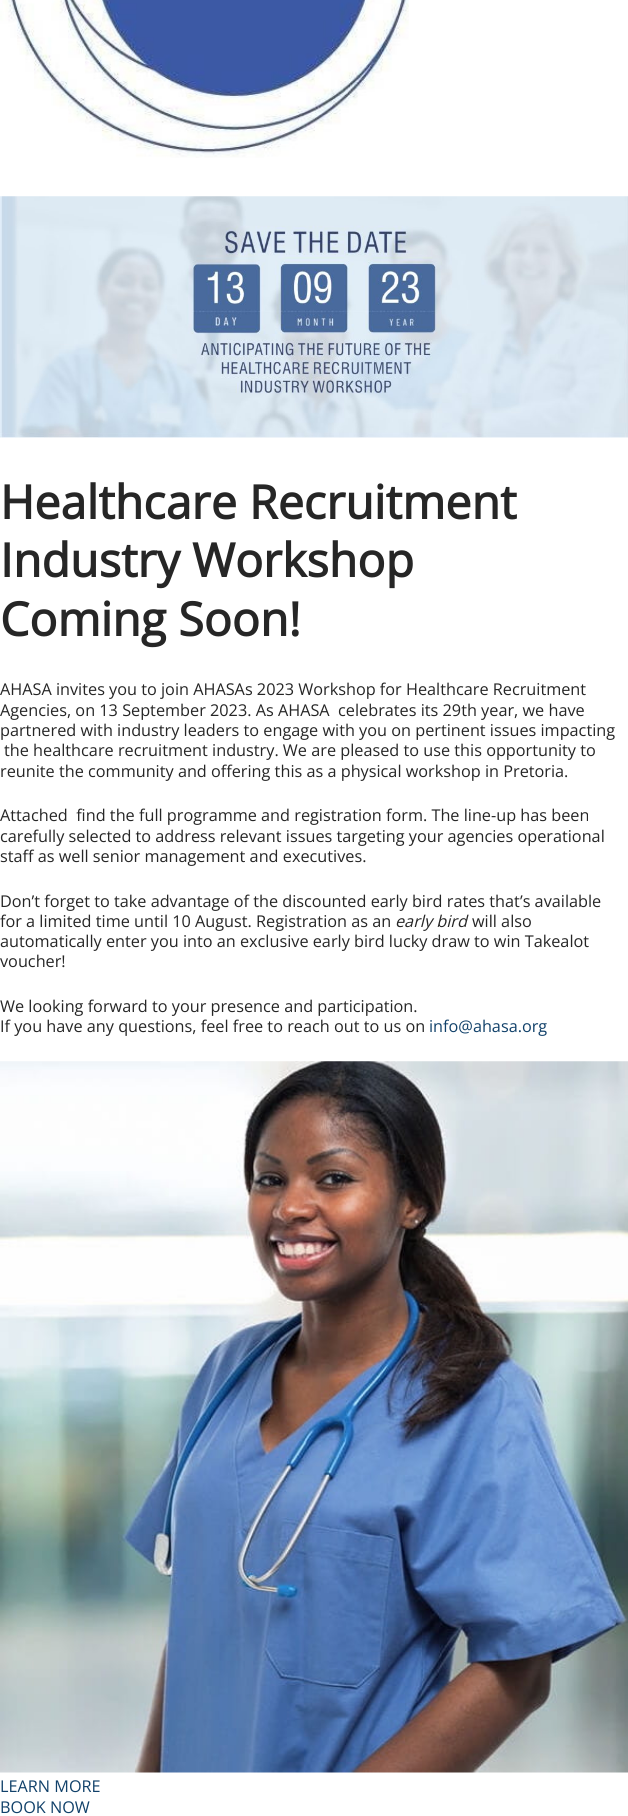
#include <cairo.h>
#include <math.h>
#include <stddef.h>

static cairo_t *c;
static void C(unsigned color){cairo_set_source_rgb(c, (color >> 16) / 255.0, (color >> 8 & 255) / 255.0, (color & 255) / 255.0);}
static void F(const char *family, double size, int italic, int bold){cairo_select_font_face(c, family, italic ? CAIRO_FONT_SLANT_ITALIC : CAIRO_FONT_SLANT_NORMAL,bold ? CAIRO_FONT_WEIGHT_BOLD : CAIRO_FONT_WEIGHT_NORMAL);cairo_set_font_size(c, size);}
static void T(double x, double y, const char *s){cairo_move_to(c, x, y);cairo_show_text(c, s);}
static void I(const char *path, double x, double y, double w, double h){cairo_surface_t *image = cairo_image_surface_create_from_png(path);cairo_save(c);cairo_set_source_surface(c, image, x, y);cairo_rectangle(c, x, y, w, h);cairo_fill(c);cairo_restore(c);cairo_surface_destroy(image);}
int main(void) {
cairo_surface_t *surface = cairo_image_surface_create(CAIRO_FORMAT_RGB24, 628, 1816);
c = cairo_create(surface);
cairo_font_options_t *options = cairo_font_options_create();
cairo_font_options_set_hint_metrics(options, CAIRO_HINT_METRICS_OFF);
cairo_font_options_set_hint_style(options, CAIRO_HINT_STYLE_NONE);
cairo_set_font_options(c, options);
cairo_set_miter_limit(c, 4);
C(0xffffff);
cairo_paint(c);
I("1.png",0,0,409,158);
I("2.png",0,196,628,242);
F("Open Sans",46.6,0,1);
C(0x262626);
T(0,519,"Healthcare Recruitment");
T(0,577,"Industry Workshop");
T(0,636,"Coming Soon!");
F("Open Sans",16.25,0,0);
T(0,695,"AHASA invites you to join AHASAs 2023 Workshop for Healthcare Recruitment");
T(0,716,"Agencies, on 13 September 2023. As AHASA  celebrates its 29th year, we have");
T(0,736,"partnered with industry leaders to engage with you on pertinent issues impacting");
T(4,756,"the healthcare recruitment industry. We are pleased to use this opportunity to");
T(0,777,"reunite the community and offering this as a physical workshop in Pretoria.");
T(0,821,"Attached  find the full programme and registration form. The line-up has been");
T(0,842,"carefully selected to address relevant issues targeting your agencies operational");
T(0,862,"staff as well senior management and executives.");
T(0,907,"Don’t forget to take advantage of the discounted early bird rates that’s available");
T(0,927,"for a limited time until 10 August. Registration as an");
F("Open Sans",16.25,1,0);
T(395,927,"early bird");
F("Open Sans",16.25,0,0);
T(472,927,"will also");
T(0,947,"automatically enter you into an exclusive early bird lucky draw to win Takealot");
T(0,967,"voucher!");
T(0,1012,"We looking forward to your presence and participation.");
T(0,1032,"If you have any questions, feel free to reach out to us on");
C(0x11416a);
T(429,1032,"info@ahasa.org");
I("3.png",0,1061,628,712);
T(0,1792,"LEARN MORE");
T(0,1813,"BOOK NOW");
cairo_surface_write_to_png(surface, "o.png");
cairo_font_options_destroy(options);
cairo_destroy(c);
cairo_surface_destroy(surface);
return 0;
}
